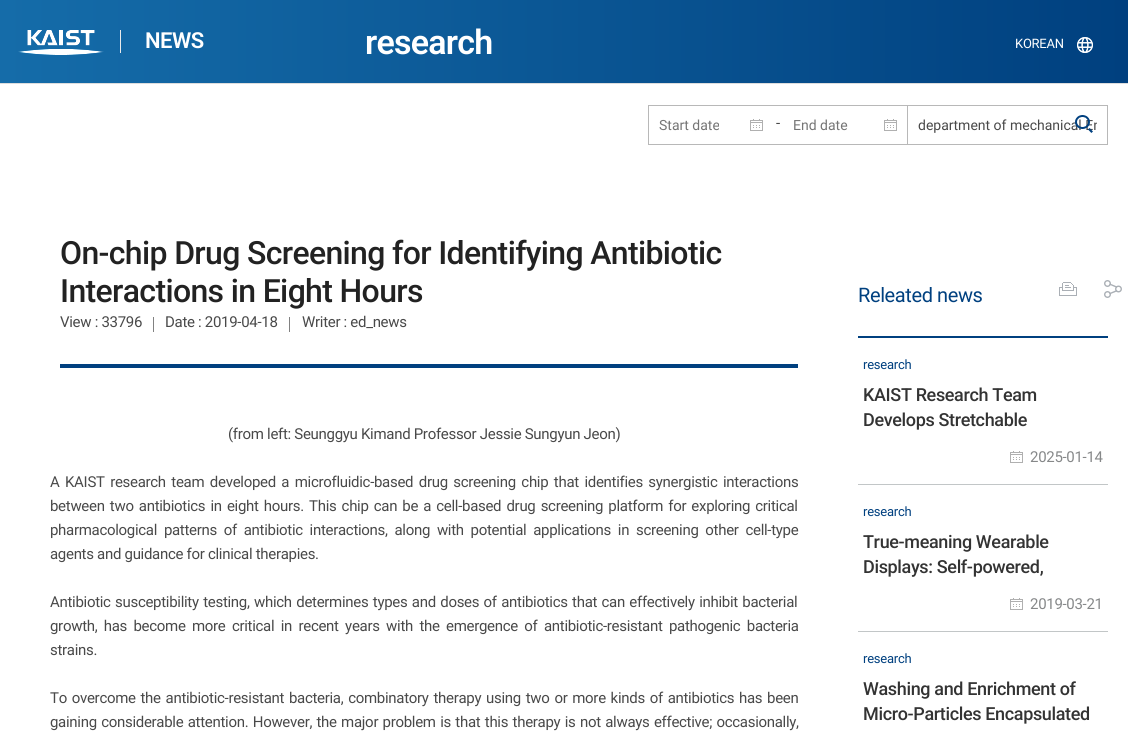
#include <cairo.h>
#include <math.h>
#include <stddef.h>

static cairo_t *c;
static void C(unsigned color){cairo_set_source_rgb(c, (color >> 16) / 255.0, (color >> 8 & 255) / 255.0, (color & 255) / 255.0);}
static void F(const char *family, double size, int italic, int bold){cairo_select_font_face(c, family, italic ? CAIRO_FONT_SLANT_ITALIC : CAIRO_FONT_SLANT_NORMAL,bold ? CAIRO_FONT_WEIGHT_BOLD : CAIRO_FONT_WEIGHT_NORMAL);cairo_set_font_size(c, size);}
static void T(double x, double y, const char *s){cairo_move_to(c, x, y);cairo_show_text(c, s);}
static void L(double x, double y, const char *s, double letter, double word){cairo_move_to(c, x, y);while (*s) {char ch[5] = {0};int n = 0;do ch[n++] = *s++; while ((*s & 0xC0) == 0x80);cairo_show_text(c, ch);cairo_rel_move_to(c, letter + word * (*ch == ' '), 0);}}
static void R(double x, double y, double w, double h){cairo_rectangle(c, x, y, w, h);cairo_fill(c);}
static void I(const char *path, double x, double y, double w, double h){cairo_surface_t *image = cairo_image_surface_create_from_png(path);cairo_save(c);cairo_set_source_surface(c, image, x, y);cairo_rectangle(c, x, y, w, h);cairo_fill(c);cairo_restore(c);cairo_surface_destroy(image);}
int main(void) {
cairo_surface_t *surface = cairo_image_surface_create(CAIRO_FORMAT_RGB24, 1128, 745);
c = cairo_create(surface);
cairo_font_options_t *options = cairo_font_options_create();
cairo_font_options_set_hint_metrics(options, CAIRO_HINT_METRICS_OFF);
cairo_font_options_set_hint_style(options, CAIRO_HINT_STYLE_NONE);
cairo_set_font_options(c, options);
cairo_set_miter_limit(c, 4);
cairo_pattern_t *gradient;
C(0xffffff);
cairo_paint(c);
gradient = cairo_pattern_create_linear(0,42,1128,41);
cairo_pattern_add_color_stop_rgba(gradient,0,0.082,0.424,0.663,1);
cairo_pattern_add_color_stop_rgba(gradient,1,0,0.251,0.498,1);
cairo_set_source(c,gradient);
cairo_pattern_destroy(gradient);
R(0,0,1128,83);
F("Roboto SemiBold",34,0,0);
C(0xffffff);
L(365,54,"research",-.75,0);
C(0x00407f);
R(60,364,738,4);
F("Roboto Medium",32,0,0);
C(0x222222);
L(60,264,"On-chip Drug Screening for Identifying Antibiotic",-.65,0);
L(60,302,"Interactions in Eight Hours",-.65,0);
F("Roboto",15,0,0);
C(0x494949);
L(60,327,"View : 33796",-.3,0);
C(0x818181);
R(153,317,1,15);
C(0x494949);
L(165,327,"Date : 2019-04-18",-.3,0);
C(0x818181);
R(289,317,1,15);
C(0x494949);
L(302,327,"Writer : ed_news",-.3,0);
L(228,439,"(from left: Seunggyu Kimand Professor Jessie Sungyun Jeon)",-.3,0);
L(50,487,"A KAIST research team developed a microfluidic-based drug screening chip that identifies synergistic interactions",-.3,2.1);
L(50,511,"between two antibiotics in eight hours. This chip can be a cell-based drug screening platform for exploring critical",-.3,1.75);
L(50,535,"pharmacological patterns of antibiotic interactions, along with potential applications in screening other cell-type",-.3,3.4);
L(50,559,"agents and guidance for clinical therapies.",-.3,0);
L(50,607,"Antibiotic susceptibility testing, which determines types and doses of antibiotics that can effectively inhibit bacterial",-.3,1);
L(50,631,"growth, has become more critical in recent years with the emergence of antibiotic-resistant pathogenic bacteria",-.3,3);
L(50,655,"strains.",-.3,0);
L(50,703,"To overcome the antibiotic-resistant bacteria, combinatory therapy using two or more kinds of antibiotics has been",-.3,1.4);
L(50,727,"gaining considerable attention. However, the major problem is that this therapy is not always effective; occasionally,",-.3,1);
C(0x00407f);
R(858,336,250,2);
F("Roboto",20,0,0);
L(858,302,"Releated news",-.4,0);
C(0xc2c6c7);
R(858,484,250,1);
F("Roboto",13,0,0);
C(0x00407f);
L(863,369,"research",-.25,0);
F("Roboto Medium",18,0,0);
C(0x333333);
L(863,401,"KAIST Research Team",-.35,0);
L(863,426,"Develops Stretchable",-.35,0);
I("1.png",1010,451,13,12);
F("Roboto",15,0,0);
C(0x868889);
L(1030,462,"2025-01-14",-.3,0);
C(0xc2c6c7);
R(858,631,250,1);
F("Roboto",13,0,0);
C(0x00407f);
L(863,516,"research",-.25,0);
F("Roboto Medium",18,0,0);
C(0x333333);
L(863,548,"True-meaning Wearable",-.35,0);
L(863,573,"Displays: Self-powered,",-.35,0);
I("1.png",1010,598,13,12);
F("Roboto",15,0,0);
C(0x868889);
L(1030,609,"2019-03-21",-.3,0);
F("Roboto",13,0,0);
C(0x00407f);
L(863,663,"research",-.25,0);
F("Roboto Medium",18,0,0);
C(0x333333);
L(863,695,"Washing and Enrichment of",-.35,0);
L(863,720,"Micro-Particles Encapsulated",-.35,0);
I("2.png",1059,282,18,14);
I("3.png",1104,280,18,18);
C(0xdddddd);
R(0,83,1128,1);
I("4.png",18,30,86,25);
C(0xeaeaea);
R(120,30,1,23);
F("Roboto SemiBold",22,0,0);
C(0xffffff);
L(145,48,"NEWS",-.5,0);
F("Roboto",13,0,0);
L(1015,48,"KOREAN",-.25,0);
I("5.png",1077,37,16,16);
cairo_rectangle(c,648.5,105.5,259,39);
C(0xb8b8b8);
cairo_set_line_width(c,1);
cairo_stroke(c);
I("1.png",750,119,13,12);
F("Roboto",14,0,0);
C(0x757575);
T(659,130,"Start date");
F("Roboto",15,0,0);
C(0x494949);
L(776,128,"-",-.3,0);
I("1.png",884,119,13,12);
F("Roboto",14,0,0);
C(0x757575);
T(793,130,"End date");
C(0xb8b8b8);
R(908,105,200,1);
R(1107,105,1,40);
R(908,144,200,1);
cairo_save(c);
cairo_rectangle(c,918,117,179,16);
cairo_clip(c);
C(0x494949);
T(918,130,"department of mechanical En");
cairo_restore(c);
I("6.png",1075,115,18,18);
cairo_surface_write_to_png(surface, "o.png");
cairo_font_options_destroy(options);
cairo_destroy(c);
cairo_surface_destroy(surface);
return 0;
}
